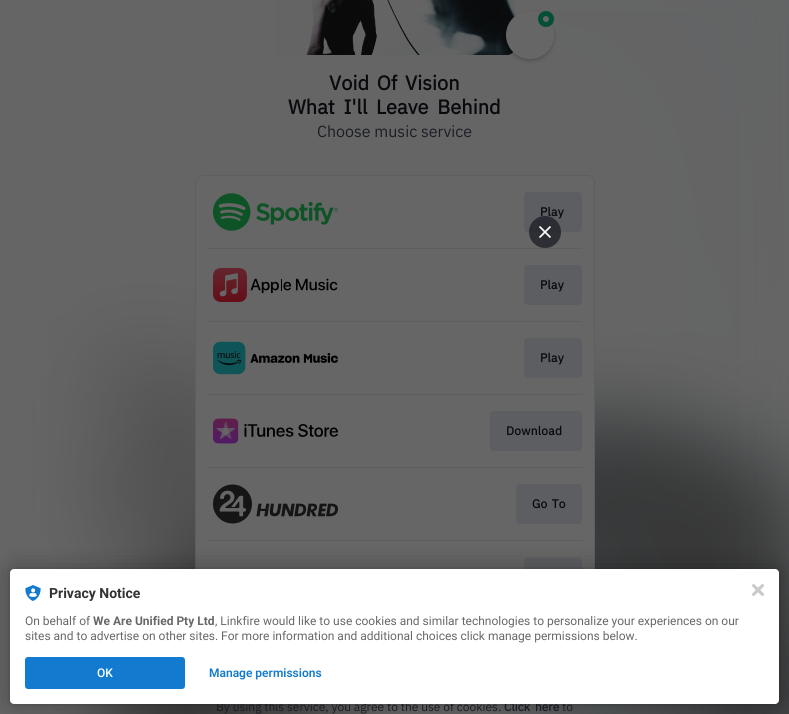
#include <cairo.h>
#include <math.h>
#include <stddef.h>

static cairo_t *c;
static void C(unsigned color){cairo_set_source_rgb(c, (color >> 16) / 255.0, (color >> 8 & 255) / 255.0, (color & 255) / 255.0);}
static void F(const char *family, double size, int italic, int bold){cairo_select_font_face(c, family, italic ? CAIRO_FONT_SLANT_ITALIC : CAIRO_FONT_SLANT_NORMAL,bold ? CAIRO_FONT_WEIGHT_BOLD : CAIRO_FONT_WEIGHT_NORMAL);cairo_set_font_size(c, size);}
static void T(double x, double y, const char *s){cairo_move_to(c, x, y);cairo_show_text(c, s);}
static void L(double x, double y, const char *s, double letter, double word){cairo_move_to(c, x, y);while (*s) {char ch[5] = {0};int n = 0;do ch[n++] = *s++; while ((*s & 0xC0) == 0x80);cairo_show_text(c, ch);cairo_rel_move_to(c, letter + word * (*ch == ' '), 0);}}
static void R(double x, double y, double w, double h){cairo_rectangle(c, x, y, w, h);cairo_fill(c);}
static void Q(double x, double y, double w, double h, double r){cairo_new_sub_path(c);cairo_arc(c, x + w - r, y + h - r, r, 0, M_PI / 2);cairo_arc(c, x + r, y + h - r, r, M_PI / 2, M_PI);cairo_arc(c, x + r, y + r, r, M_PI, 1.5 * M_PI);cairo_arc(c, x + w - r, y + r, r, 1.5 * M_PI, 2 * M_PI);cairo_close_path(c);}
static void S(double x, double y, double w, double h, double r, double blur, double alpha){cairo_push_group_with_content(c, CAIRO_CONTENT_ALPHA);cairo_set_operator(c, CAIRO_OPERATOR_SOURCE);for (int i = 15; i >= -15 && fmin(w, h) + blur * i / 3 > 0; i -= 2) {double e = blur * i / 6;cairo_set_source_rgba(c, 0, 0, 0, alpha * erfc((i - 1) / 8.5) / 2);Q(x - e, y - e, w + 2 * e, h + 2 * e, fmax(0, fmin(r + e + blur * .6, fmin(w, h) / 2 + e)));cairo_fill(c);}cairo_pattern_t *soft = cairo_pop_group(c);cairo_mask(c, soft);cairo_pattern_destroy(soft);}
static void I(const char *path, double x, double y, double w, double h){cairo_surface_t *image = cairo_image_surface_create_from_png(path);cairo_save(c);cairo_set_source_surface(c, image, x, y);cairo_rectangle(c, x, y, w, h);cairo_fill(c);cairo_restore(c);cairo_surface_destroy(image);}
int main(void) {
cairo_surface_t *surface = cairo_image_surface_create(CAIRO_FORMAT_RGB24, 789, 714);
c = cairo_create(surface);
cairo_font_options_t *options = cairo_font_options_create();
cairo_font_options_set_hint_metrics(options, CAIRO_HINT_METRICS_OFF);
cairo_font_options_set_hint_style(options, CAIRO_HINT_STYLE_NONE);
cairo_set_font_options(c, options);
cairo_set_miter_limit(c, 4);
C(0x666666);
cairo_paint(c);
I("1.png",0,0,789,714);
I("2.png",275,0,240,55);
C(0x000000);
S(506,13,48,48,24,2,.2);
C(0x666666);
cairo_arc(c,530,35,24,0,2 * M_PI);
cairo_fill(c);
cairo_arc(c,546,19,5.5,0,2 * M_PI);
C(0x054f36);
cairo_set_line_width(c,5);
cairo_stroke(c);
Q(195.5,175.5,399,511,7.5);
C(0x5c5e61);
cairo_set_line_width(c,1);
cairo_stroke(c);
C(0x666666);
Q(196,176,398,510,7);
cairo_fill(c);
C(0x5c5e61);
Q(524,192,58,40,4);
cairo_fill(c);
F("IBM Plex Sans",12,0,1);
C(0x0a090d);
L(540,216,"Play",.25,0);
cairo_set_source_rgba(c,0.094,0.09,0.129,0.7);
cairo_new_path(c);
cairo_arc(c,545,232,16,0,2 * M_PI);
cairo_fill(c);
cairo_new_path(c);
cairo_move_to(c,540,227);
cairo_line_to(c,550,237);
cairo_move_to(c,540,237);
cairo_line_to(c,550,227);
C(0xffffff);
cairo_set_line_width(c,1.7);
cairo_set_line_cap(c,CAIRO_LINE_CAP_ROUND);
cairo_set_line_join(c,CAIRO_LINE_JOIN_ROUND);
cairo_stroke(c);
F("IBM Plex Sans",20,0,1);
C(0x0a090d);
L(329,90,"Void Of Vision",0,3);
L(288,114,"What I'll Leave Behind",0,4);
F("IBM Plex Sans",16,0,0);
C(0x1c1e26);
T(317,137,"Choose music service");
I("3.png",213,193,125,38);
C(0x5c5e61);
R(208,248,374,1);
I("4.png",213,268,125,34);
Q(524,265,58,40,4);
cairo_fill(c);
F("IBM Plex Sans",12,0,1);
C(0x0a090d);
L(540,289,"Play",.25,0);
C(0x5c5e61);
R(208,321,374,1);
I("5.png",213,341,125,34);
Q(524,338,58,40,4);
cairo_fill(c);
C(0x0a090d);
L(540,362,"Play",.25,0);
C(0x5c5e61);
R(208,394,374,1);
I("6.png",213,418,125,26);
Q(490,411,92,40,4);
cairo_fill(c);
C(0x0a090d);
L(506,435,"Download",.25,0);
C(0x5c5e61);
R(208,467,374,1);
I("7.png",213,484,125,40);
Q(516,484,66,40,4);
cairo_fill(c);
C(0x0a090d);
L(532,508,"Go To",.25,1);
C(0x5c5e61);
R(208,540,374,1);
Q(524,557,58,40,4);
cairo_fill(c);
F("IBM Plex Sans",12,0,0);
C(0x1c1e26);
T(216,711,"By using this service, you agree to the use of cookies.");
F("IBM Plex Sans",12,0,1);
L(504,711,"Click here",0,2);
F("IBM Plex Sans",12,0,0);
T(562,711,"to");
C(0x000000);
S(10,569,769,135,4,2,.12);
S(10,569,769,135,4,12,.3);
C(0xffffff);
Q(10,569,769,135,4);
cairo_fill(c);
I("8.png",25,585,16,16);
F("Roboto",14,0,1);
C(0x323232);
T(49,598,"Privacy Notice");
F("Roboto",12,0,0);
C(0x686868);
T(25,625,"On behalf of");
F("Roboto",12,0,1);
T(93,625,"We Are Unified Pty Ltd");
F("Roboto",12,0,0);
T(215,625,", Linkfire would like to use cookies and similar technologies to personalize your experiences on our");
T(25,640,"sites and to advertise on other sites. For more information and additional choices click manage permissions below.");
C(0x137bcf);
Q(25,657,160,32,3);
cairo_fill(c);
F("Roboto Medium",12,0,0);
C(0xffffff);
T(97,677,"OK");
F("Roboto SemiBold",12,0,0);
C(0x137bcf);
T(209,677,"Manage permissions");
I("9.png",752,584,12,12);
cairo_surface_write_to_png(surface, "o.png");
cairo_font_options_destroy(options);
cairo_destroy(c);
cairo_surface_destroy(surface);
return 0;
}
